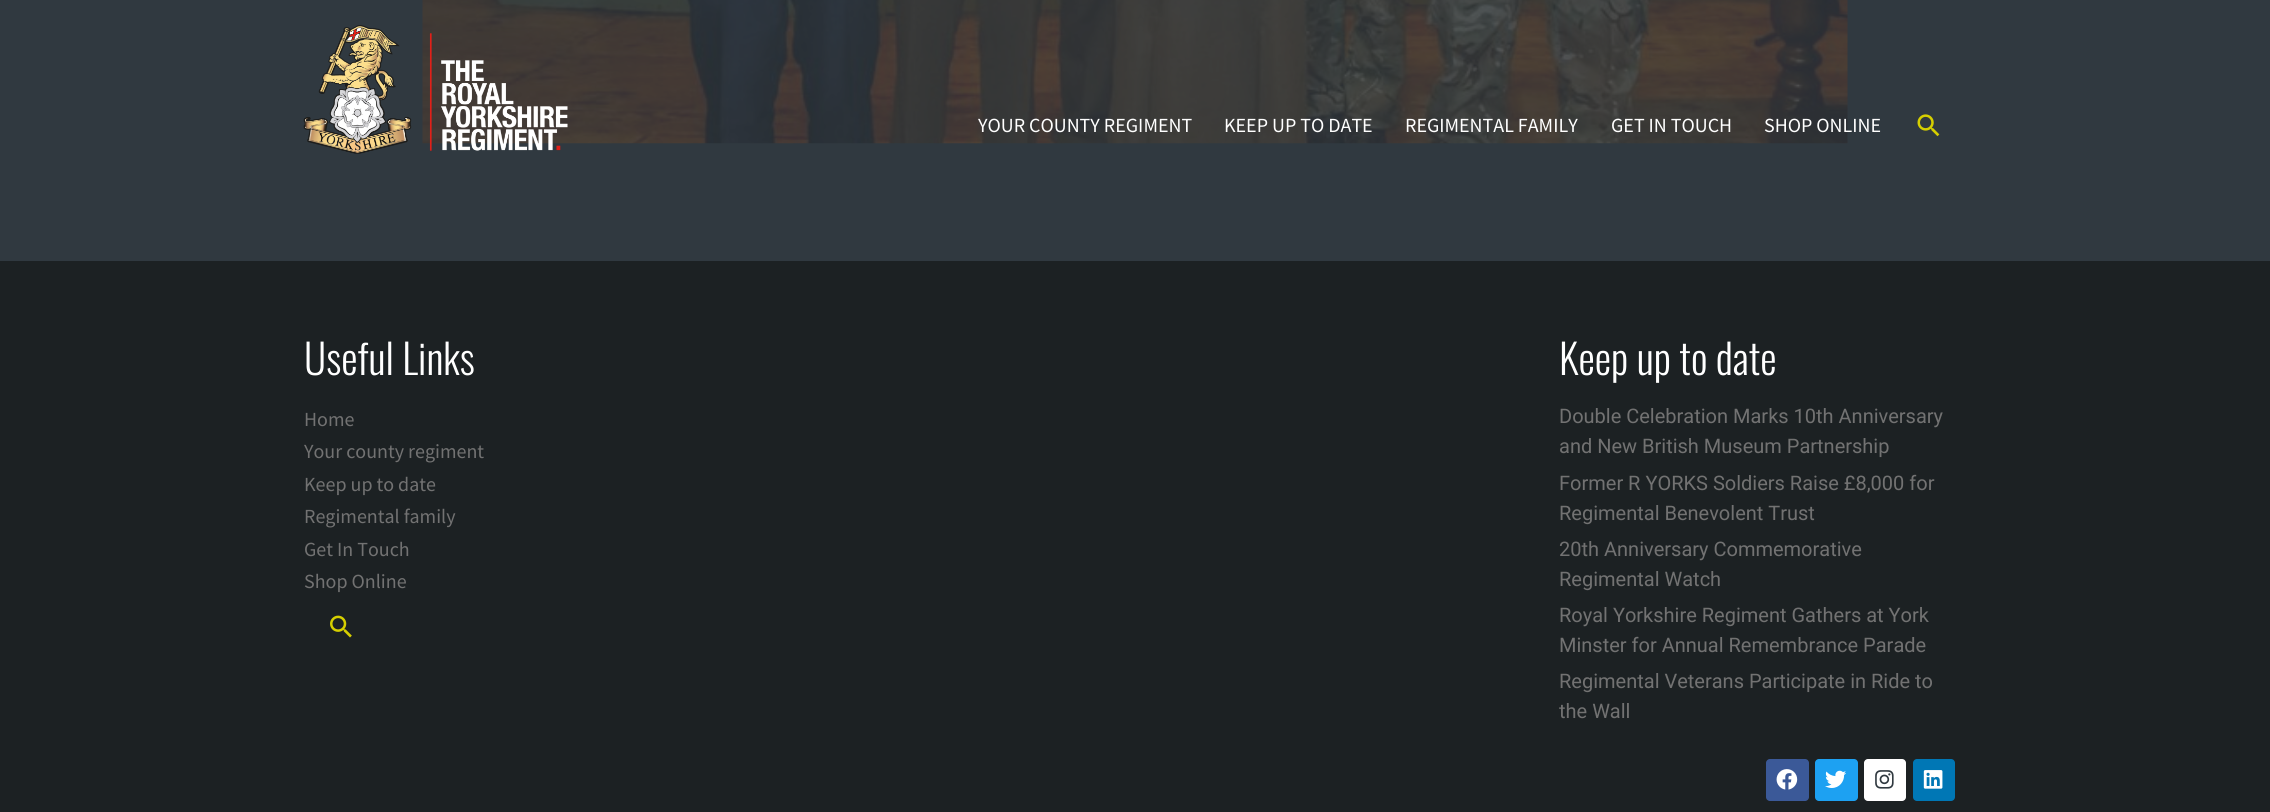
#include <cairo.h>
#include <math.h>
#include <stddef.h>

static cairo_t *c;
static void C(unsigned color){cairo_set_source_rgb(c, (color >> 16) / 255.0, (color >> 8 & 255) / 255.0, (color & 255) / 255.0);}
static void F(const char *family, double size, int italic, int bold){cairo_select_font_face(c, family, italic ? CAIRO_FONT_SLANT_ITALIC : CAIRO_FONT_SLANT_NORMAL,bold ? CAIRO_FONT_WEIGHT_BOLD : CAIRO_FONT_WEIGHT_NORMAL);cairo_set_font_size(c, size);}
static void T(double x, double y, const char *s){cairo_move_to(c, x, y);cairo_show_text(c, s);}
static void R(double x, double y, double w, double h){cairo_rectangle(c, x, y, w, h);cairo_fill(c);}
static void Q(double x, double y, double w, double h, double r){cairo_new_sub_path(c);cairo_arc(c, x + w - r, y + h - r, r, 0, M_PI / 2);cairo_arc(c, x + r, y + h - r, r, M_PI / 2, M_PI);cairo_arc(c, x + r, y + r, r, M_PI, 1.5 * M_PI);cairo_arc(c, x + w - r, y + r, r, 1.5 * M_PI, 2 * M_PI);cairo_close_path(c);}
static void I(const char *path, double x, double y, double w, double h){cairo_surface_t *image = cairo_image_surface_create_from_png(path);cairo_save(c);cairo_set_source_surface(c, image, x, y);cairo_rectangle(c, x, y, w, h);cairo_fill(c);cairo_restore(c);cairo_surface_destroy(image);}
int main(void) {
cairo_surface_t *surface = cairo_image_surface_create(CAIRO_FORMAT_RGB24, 2270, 812);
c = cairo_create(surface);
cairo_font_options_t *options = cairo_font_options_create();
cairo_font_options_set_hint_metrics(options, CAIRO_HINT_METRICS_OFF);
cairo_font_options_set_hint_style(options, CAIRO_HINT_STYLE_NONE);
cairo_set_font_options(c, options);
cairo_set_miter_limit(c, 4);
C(0x303940);
cairo_paint(c);
I("1.png",422,0,1426,144);
I("2.png",303,25,265,129);
F("Source Sans Pro",20,0,0);
C(0xffffff);
T(978,132,"YOUR COUNTY REGIMENT");
T(1224,132,"KEEP UP TO DATE");
T(1405,132,"REGIMENTAL FAMILY");
T(1611,132,"GET IN TOUCH");
T(1764,132,"SHOP ONLINE");
I("3.png",1917,114,23,23);
C(0x1c2123);
R(0,261,2270,551);
F("Oswald Light",41.25,0,0);
C(0xffffff);
T(304,375,"Useful Links");
F("Source Sans Pro",20,0,0);
C(0x727272);
T(304,426,"Home");
T(304,458,"Your county regiment");
T(304,491,"Keep up to date");
T(304,523,"Regimental family");
T(304,556,"Get In Touch");
T(304,588,"Shop Online");
I("4.png",330,615,22,23);
F("Oswald Light",41.25,0,0);
C(0xffffff);
T(1559,375,"Keep up to date");
F("Roboto",20,0,0);
C(0x727272);
T(1559,423,"Double Celebration Marks 10th Anniversary");
T(1559,453,"and New British Museum Partnership");
T(1559,490,"Former R YORKS Soldiers Raise £8,000 for");
T(1559,520,"Regimental Benevolent Trust");
T(1559,556,"20th Anniversary Commemorative");
T(1559,586,"Regimental Watch");
T(1559,622,"Royal Yorkshire Regiment Gathers at York");
T(1559,652,"Minster for Annual Remembrance Parade");
T(1559,688,"Regimental Veterans Participate in Ride to");
T(1559,718,"the Wall");
C(0x3b5998);
Q(1766,759,43,42,4);
cairo_fill(c);
I("5.png",1776,769,22,21);
C(0x1da1f2);
Q(1815,759,43,42,4);
cairo_fill(c);
I("6.png",1825,770,21,18);
C(0xffffff);
Q(1864,759,42,42,4);
cairo_fill(c);
I("7.png",1875,770,19,19);
C(0x0077b5);
Q(1913,759,42,42,4);
cairo_fill(c);
I("8.png",1923,770,20,19);
cairo_surface_write_to_png(surface, "o.png");
cairo_font_options_destroy(options);
cairo_destroy(c);
cairo_surface_destroy(surface);
return 0;
}
